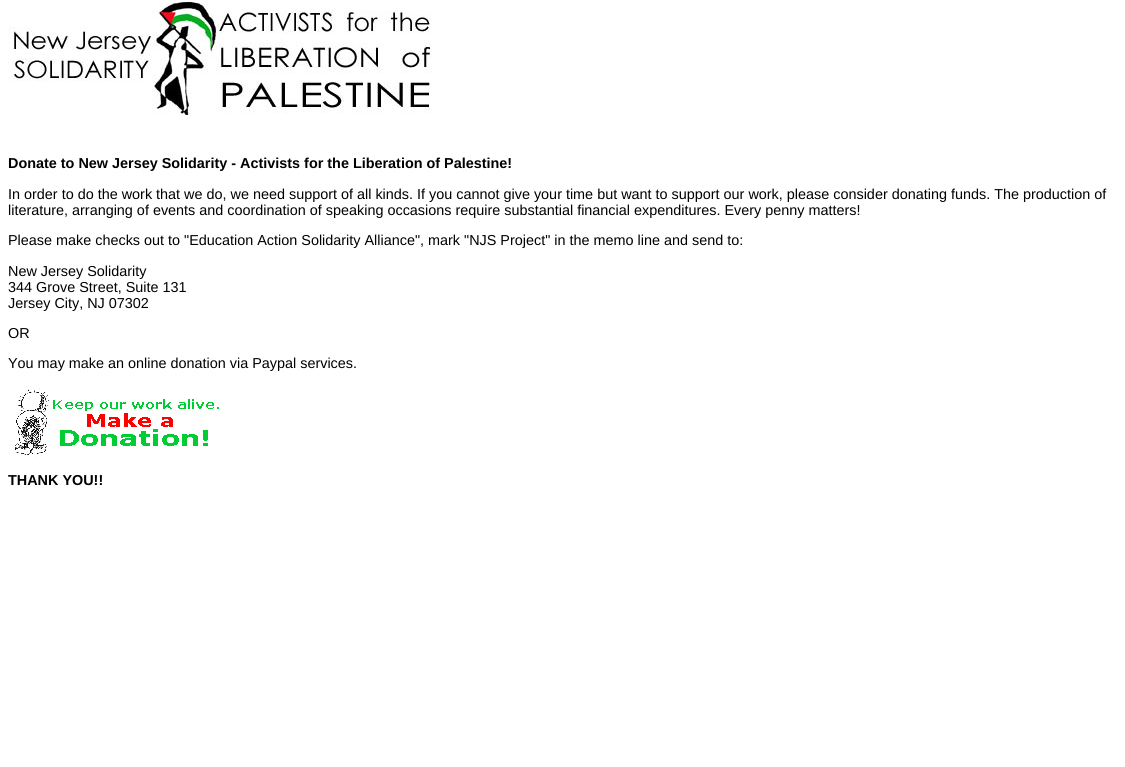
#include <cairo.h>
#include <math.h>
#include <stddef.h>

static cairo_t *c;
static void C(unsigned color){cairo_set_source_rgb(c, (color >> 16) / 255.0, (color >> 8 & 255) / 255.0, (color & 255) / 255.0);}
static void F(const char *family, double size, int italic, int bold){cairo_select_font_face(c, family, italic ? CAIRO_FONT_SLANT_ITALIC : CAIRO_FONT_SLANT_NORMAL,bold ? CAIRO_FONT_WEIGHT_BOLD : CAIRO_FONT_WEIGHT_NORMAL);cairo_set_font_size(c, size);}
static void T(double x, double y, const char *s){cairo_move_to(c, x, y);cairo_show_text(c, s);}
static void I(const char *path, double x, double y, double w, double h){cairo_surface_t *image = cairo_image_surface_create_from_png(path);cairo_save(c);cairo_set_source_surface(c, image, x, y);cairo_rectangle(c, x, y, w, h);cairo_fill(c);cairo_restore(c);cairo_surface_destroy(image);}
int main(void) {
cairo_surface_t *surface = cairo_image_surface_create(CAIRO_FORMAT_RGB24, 1125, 767);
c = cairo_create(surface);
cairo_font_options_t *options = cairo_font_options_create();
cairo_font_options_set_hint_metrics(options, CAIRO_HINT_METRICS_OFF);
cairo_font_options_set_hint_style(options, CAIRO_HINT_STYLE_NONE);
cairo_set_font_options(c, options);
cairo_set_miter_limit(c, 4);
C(0xffffff);
cairo_paint(c);
I("1.png",8,2,424,113);
F("Liberation Sans",14.4,0,1);
C(0x000000);
T(8,168,"Donate to New Jersey Solidarity - Activists for the Liberation of Palestine!");
F("Liberation Sans",14.4,0,0);
T(8,199,"In order to do the work that we do, we need support of all kinds. If you cannot give your time but want to support our work, please consider donating funds. The production of");
T(8,215,"literature, arranging of events and coordination of speaking occasions require substantial financial expenditures. Every penny matters!");
T(8,245,"Please make checks out to \"Education Action Solidarity Alliance\", mark \"NJS Project\" in the memo line and send to:");
T(8,276,"New Jersey Solidarity");
T(8,292,"344 Grove Street, Suite 131");
T(8,308,"Jersey City, NJ 07302");
T(8,338,"OR");
T(8,368,"You may make an online donation via Paypal services.");
I("2.png",15,388,204,70);
F("Liberation Sans",14.4,0,1);
T(8,485,"THANK YOU!!");
cairo_surface_write_to_png(surface, "o.png");
cairo_font_options_destroy(options);
cairo_destroy(c);
cairo_surface_destroy(surface);
return 0;
}
